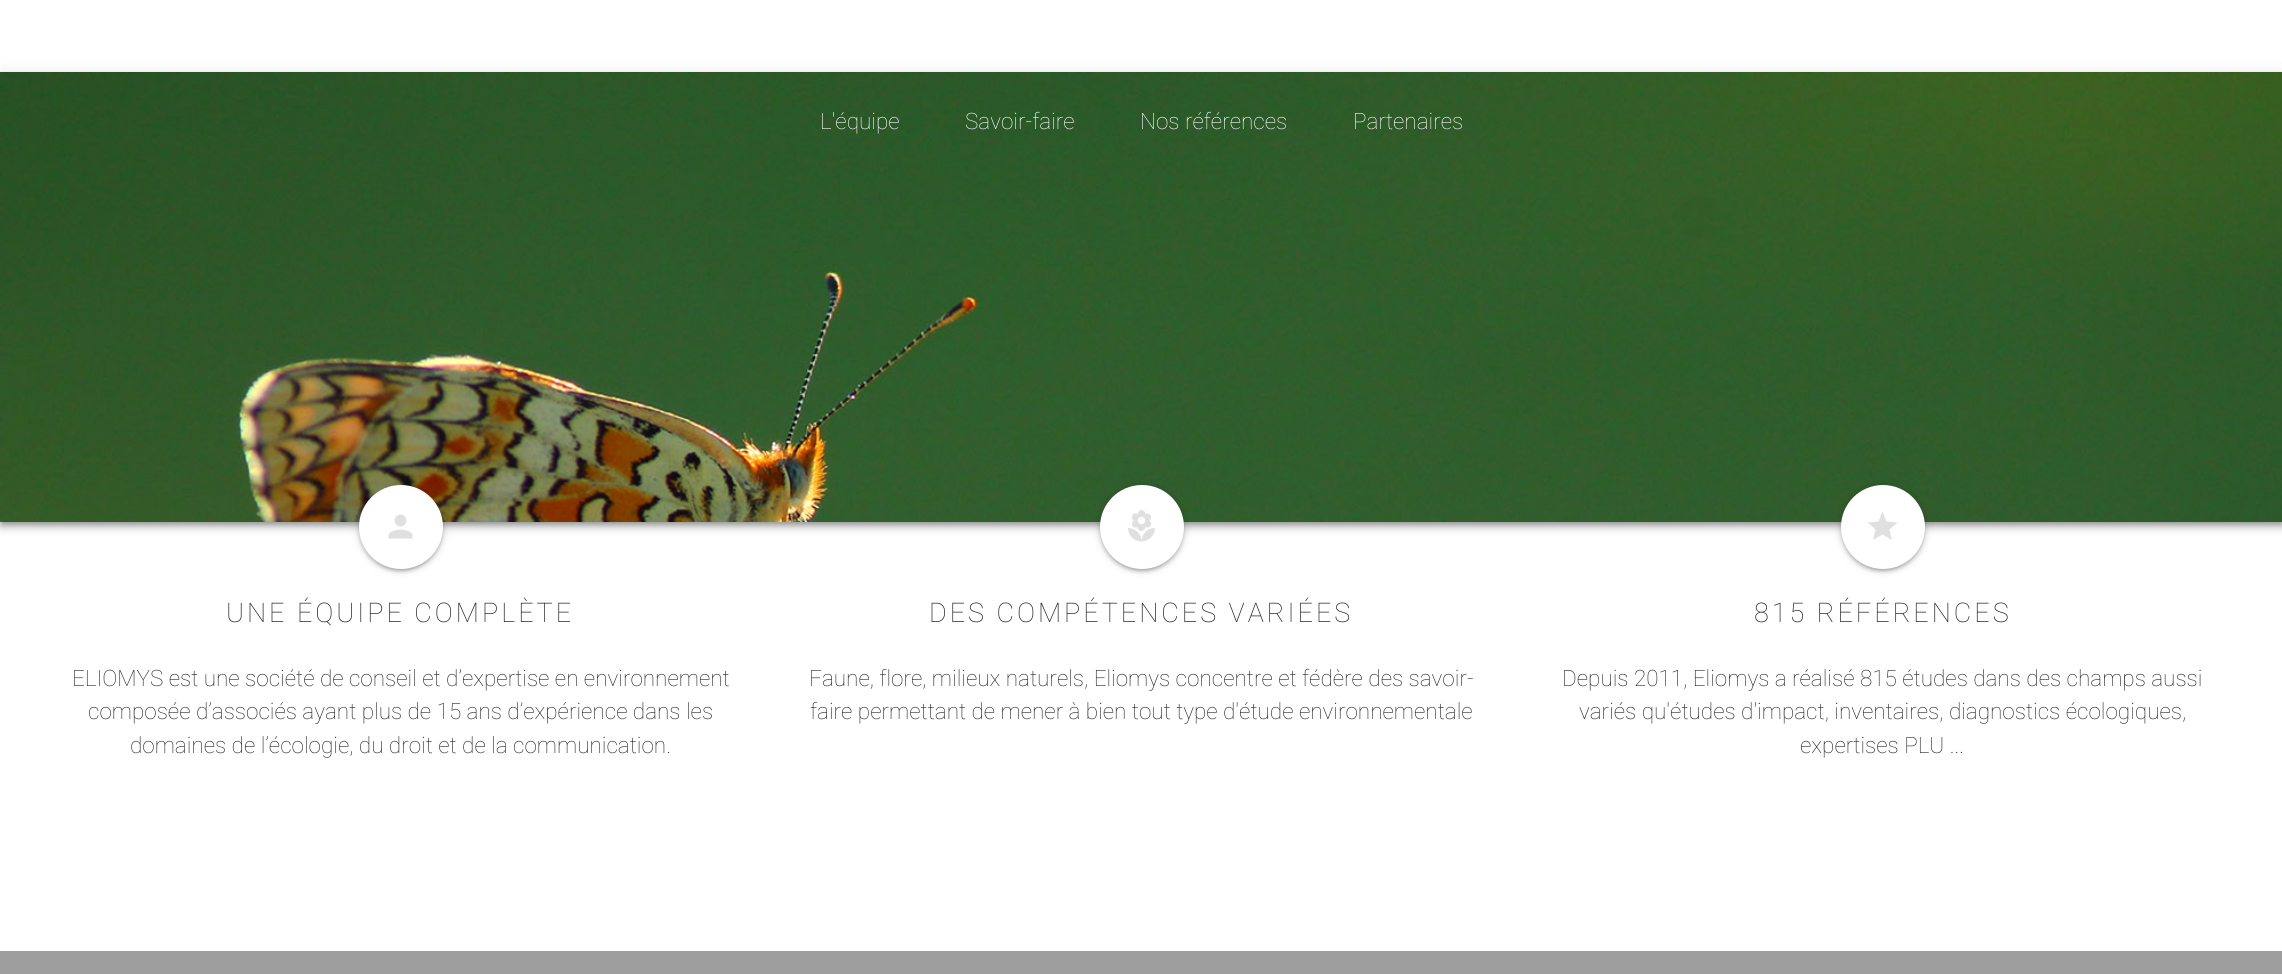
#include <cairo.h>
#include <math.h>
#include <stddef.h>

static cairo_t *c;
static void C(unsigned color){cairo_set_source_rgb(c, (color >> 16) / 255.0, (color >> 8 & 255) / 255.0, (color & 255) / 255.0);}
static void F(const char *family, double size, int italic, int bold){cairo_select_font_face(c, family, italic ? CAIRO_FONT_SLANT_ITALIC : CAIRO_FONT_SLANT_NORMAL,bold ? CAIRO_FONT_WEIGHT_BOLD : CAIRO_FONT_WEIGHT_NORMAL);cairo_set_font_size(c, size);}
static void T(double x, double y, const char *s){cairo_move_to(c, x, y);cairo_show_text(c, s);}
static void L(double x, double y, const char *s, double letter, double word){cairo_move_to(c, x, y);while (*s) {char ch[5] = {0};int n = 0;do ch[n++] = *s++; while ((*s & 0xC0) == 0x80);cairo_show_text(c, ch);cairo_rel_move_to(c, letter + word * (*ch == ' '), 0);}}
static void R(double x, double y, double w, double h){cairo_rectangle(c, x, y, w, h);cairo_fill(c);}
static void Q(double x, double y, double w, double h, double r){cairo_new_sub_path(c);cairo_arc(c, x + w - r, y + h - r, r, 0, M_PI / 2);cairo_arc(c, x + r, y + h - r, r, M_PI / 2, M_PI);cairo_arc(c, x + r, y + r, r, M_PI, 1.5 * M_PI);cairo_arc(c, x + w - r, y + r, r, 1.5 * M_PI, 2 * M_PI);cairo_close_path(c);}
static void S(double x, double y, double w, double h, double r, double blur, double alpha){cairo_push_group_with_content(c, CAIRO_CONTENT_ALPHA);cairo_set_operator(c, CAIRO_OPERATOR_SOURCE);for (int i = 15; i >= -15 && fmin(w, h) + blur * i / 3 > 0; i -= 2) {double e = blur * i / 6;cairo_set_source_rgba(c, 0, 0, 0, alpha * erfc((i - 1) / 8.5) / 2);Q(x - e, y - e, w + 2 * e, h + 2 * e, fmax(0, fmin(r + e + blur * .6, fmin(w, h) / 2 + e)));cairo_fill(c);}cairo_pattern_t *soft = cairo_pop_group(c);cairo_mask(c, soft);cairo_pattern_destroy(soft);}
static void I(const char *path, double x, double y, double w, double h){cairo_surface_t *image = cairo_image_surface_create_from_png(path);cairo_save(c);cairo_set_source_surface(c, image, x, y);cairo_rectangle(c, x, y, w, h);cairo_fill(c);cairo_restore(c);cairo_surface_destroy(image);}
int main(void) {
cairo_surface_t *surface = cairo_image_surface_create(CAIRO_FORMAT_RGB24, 2282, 974);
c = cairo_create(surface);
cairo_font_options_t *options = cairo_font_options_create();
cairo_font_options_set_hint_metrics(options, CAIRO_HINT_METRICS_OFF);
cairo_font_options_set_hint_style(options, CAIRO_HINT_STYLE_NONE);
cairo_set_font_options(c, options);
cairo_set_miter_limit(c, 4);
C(0xffffff);
cairo_paint(c);
C(0x000000);
S(2,77,2280,447,0,3,.3);
S(0,74,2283,450,0,7.5,.12);
S(0,78,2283,450,0,4,.14);
I("1.png",0,72,2282,450);
F("Roboto Thin",22.5,0,0);
C(0xffffff);
T(820,129,"L'équipe");
T(965,129,"Savoir-faire");
T(1140,129,"Nos références");
T(1353,129,"Partenaires");
C(0x000000);
S(359,486,84,84,42,4,.2);
S(362,492,78,78,39,1,.12);
S(359,488,84,84,42,1.5,.14);
C(0xffffff);
cairo_arc(c,401,527,42,0,2 * M_PI);
cairo_fill(c);
I("2.png",388,514,25,25);
F("Roboto Thin",27,0,0);
C(0x212121);
L(226,622,"UNE ÉQUIPE COMPLÈTE",3,0);
F("Roboto Thin",22.5,0,0);
T(72,686,"ELIOMYS est une société de conseil et d’expertise en environnement");
T(88,719,"composée d’associés ayant plus de 15 ans d’expérience dans les");
T(130,753,"domaines de l’écologie, du droit et de la communication.");
C(0x000000);
S(1100,486,84,84,42,4,.2);
S(1103,492,78,78,39,1,.12);
S(1100,488,84,84,42,1.5,.14);
C(0xffffff);
cairo_arc(c,1142,527,42,0,2 * M_PI);
cairo_fill(c);
I("3.png",1128,510,27,32);
F("Roboto Thin",27,0,0);
C(0x212121);
L(929,622,"DES COMPÉTENCES VARIÉES",3,0);
F("Roboto Thin",22.5,0,0);
T(809,686,"Faune, flore, milieux naturels, Eliomys concentre et fédère des savoir-");
T(810,719,"faire permettant de mener à bien tout type d'étude environnementale");
C(0x000000);
S(1841,486,84,84,42,4,.2);
S(1844,492,78,78,39,1,.12);
S(1841,488,84,84,42,1.5,.14);
C(0xffffff);
cairo_arc(c,1883,527,42,0,2 * M_PI);
cairo_fill(c);
C(0xe0e0e0);
cairo_new_path(c);
cairo_move_to(c,1882.5,534.5);
cairo_line_to(c,1873,540);
cairo_line_to(c,1875.5,529.5);
cairo_line_to(c,1867.5,522.5);
cairo_line_to(c,1878.5,521.5);
cairo_line_to(c,1882.5,511.5);
cairo_line_to(c,1886.5,521.5);
cairo_line_to(c,1897.5,522.5);
cairo_line_to(c,1889.5,529.5);
cairo_line_to(c,1892,540);
cairo_close_path(c);
cairo_fill(c);
F("Roboto Thin",27,0,0);
C(0x212121);
L(1754,622,"815 RÉFÉRENCES",3,0);
F("Roboto Thin",22.5,0,0);
T(1562,686,"Depuis 2011, Eliomys a réalisé 815 études dans des champs aussi");
T(1579,719,"variés qu'études d'impact, inventaires, diagnostics écologiques,");
T(1800,753,"expertises PLU ...");
C(0x9e9e9e);
R(0,951,2282,23);
cairo_surface_write_to_png(surface, "o.png");
cairo_font_options_destroy(options);
cairo_destroy(c);
cairo_surface_destroy(surface);
return 0;
}
